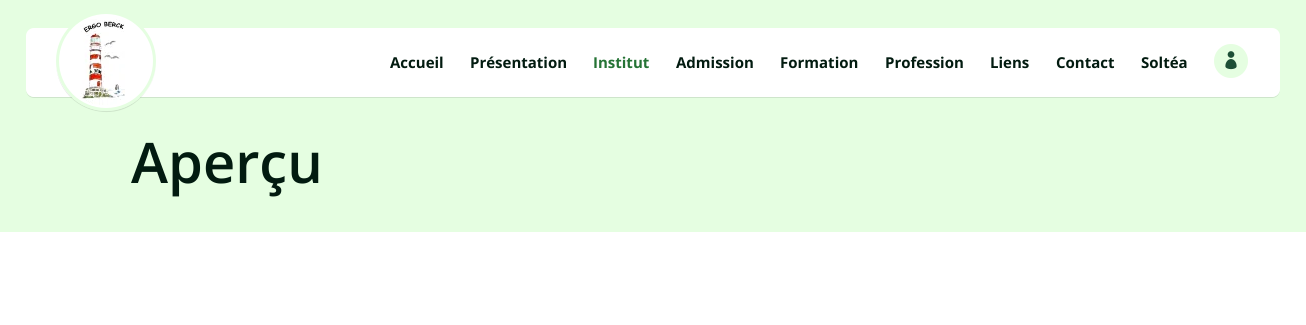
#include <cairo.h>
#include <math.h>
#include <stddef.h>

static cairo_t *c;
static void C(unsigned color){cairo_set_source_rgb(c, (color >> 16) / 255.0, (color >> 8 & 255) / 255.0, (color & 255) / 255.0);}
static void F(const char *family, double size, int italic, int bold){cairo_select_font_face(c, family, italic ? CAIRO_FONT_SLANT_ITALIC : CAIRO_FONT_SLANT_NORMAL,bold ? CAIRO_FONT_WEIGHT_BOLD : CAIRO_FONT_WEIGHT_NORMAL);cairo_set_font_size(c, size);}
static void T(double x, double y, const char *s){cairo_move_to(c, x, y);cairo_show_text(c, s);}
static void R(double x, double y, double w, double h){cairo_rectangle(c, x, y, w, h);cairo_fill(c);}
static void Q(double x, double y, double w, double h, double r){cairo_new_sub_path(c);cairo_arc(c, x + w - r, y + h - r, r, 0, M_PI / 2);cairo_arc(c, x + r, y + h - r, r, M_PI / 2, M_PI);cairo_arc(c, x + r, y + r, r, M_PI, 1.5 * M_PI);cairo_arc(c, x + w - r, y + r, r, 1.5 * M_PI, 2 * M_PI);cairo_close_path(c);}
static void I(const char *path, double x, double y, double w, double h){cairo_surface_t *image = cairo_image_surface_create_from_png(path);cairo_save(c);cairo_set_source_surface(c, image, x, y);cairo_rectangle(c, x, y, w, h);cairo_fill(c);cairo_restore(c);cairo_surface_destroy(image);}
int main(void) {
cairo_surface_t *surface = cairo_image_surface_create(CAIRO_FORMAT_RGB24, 1306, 325);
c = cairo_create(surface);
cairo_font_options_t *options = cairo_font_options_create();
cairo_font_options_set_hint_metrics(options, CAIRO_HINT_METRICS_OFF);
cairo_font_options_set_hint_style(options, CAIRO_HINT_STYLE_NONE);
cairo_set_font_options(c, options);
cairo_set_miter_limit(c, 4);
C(0xffffff);
cairo_paint(c);
C(0xe5fee1);
R(0,0,1306,232);
C(0xcee5cb);
cairo_new_path(c);
cairo_move_to(c,26,89);
cairo_curve_to(c,26,94,29,98,34,98);
cairo_line_to(c,1272,98);
cairo_curve_to(c,1277,98,1280,94,1280,89);
cairo_curve_to(c,1280,93,1276,97,1272,97);
cairo_line_to(c,34,97);
cairo_curve_to(c,30,97,26,93,26,89);
cairo_close_path(c);
cairo_fill(c);
C(0xffffff);
Q(26,28,1254,69,8);
cairo_fill(c);
cairo_set_source_rgba(c,0,0,0,0.1);
cairo_new_path(c);
cairo_move_to(c,156,62);
cairo_curve_to(c,156,89,133,111,106,111);
cairo_curve_to(c,79,111,56,89,56,62);
cairo_curve_to(c,56,111,120,131,147,90);
cairo_curve_to(c,153,82,156,72,156,62);
cairo_close_path(c);
cairo_fill(c);
C(0xffffff);
cairo_arc(c,106,61,48.5,0,2 * M_PI);
cairo_fill_preserve(c);
C(0xe5fee1);
cairo_set_line_width(c,3);
cairo_stroke(c);
I("1.png",80,19,45,86);
F("Open Sans",15,0,1);
C(0x021b10);
T(390,68,"Accueil");
T(470,68,"Présentation");
C(0x257335);
T(593,68,"Institut");
C(0x021b10);
T(676,68,"Admission");
T(780,68,"Formation");
T(885,68,"Profession");
T(990,68,"Liens");
T(1056,68,"Contact");
T(1141,68,"Soltéa");
C(0xe5fee1);
cairo_new_path(c);
cairo_arc(c,1231,61,17,0,2 * M_PI);
cairo_fill(c);
I("2.png",1225,51,12,19);
F("Open Sans SemiBold",56,0,0);
C(0x021b10);
T(131,183,"Aperçu");
cairo_surface_write_to_png(surface, "o.png");
cairo_font_options_destroy(options);
cairo_destroy(c);
cairo_surface_destroy(surface);
return 0;
}
